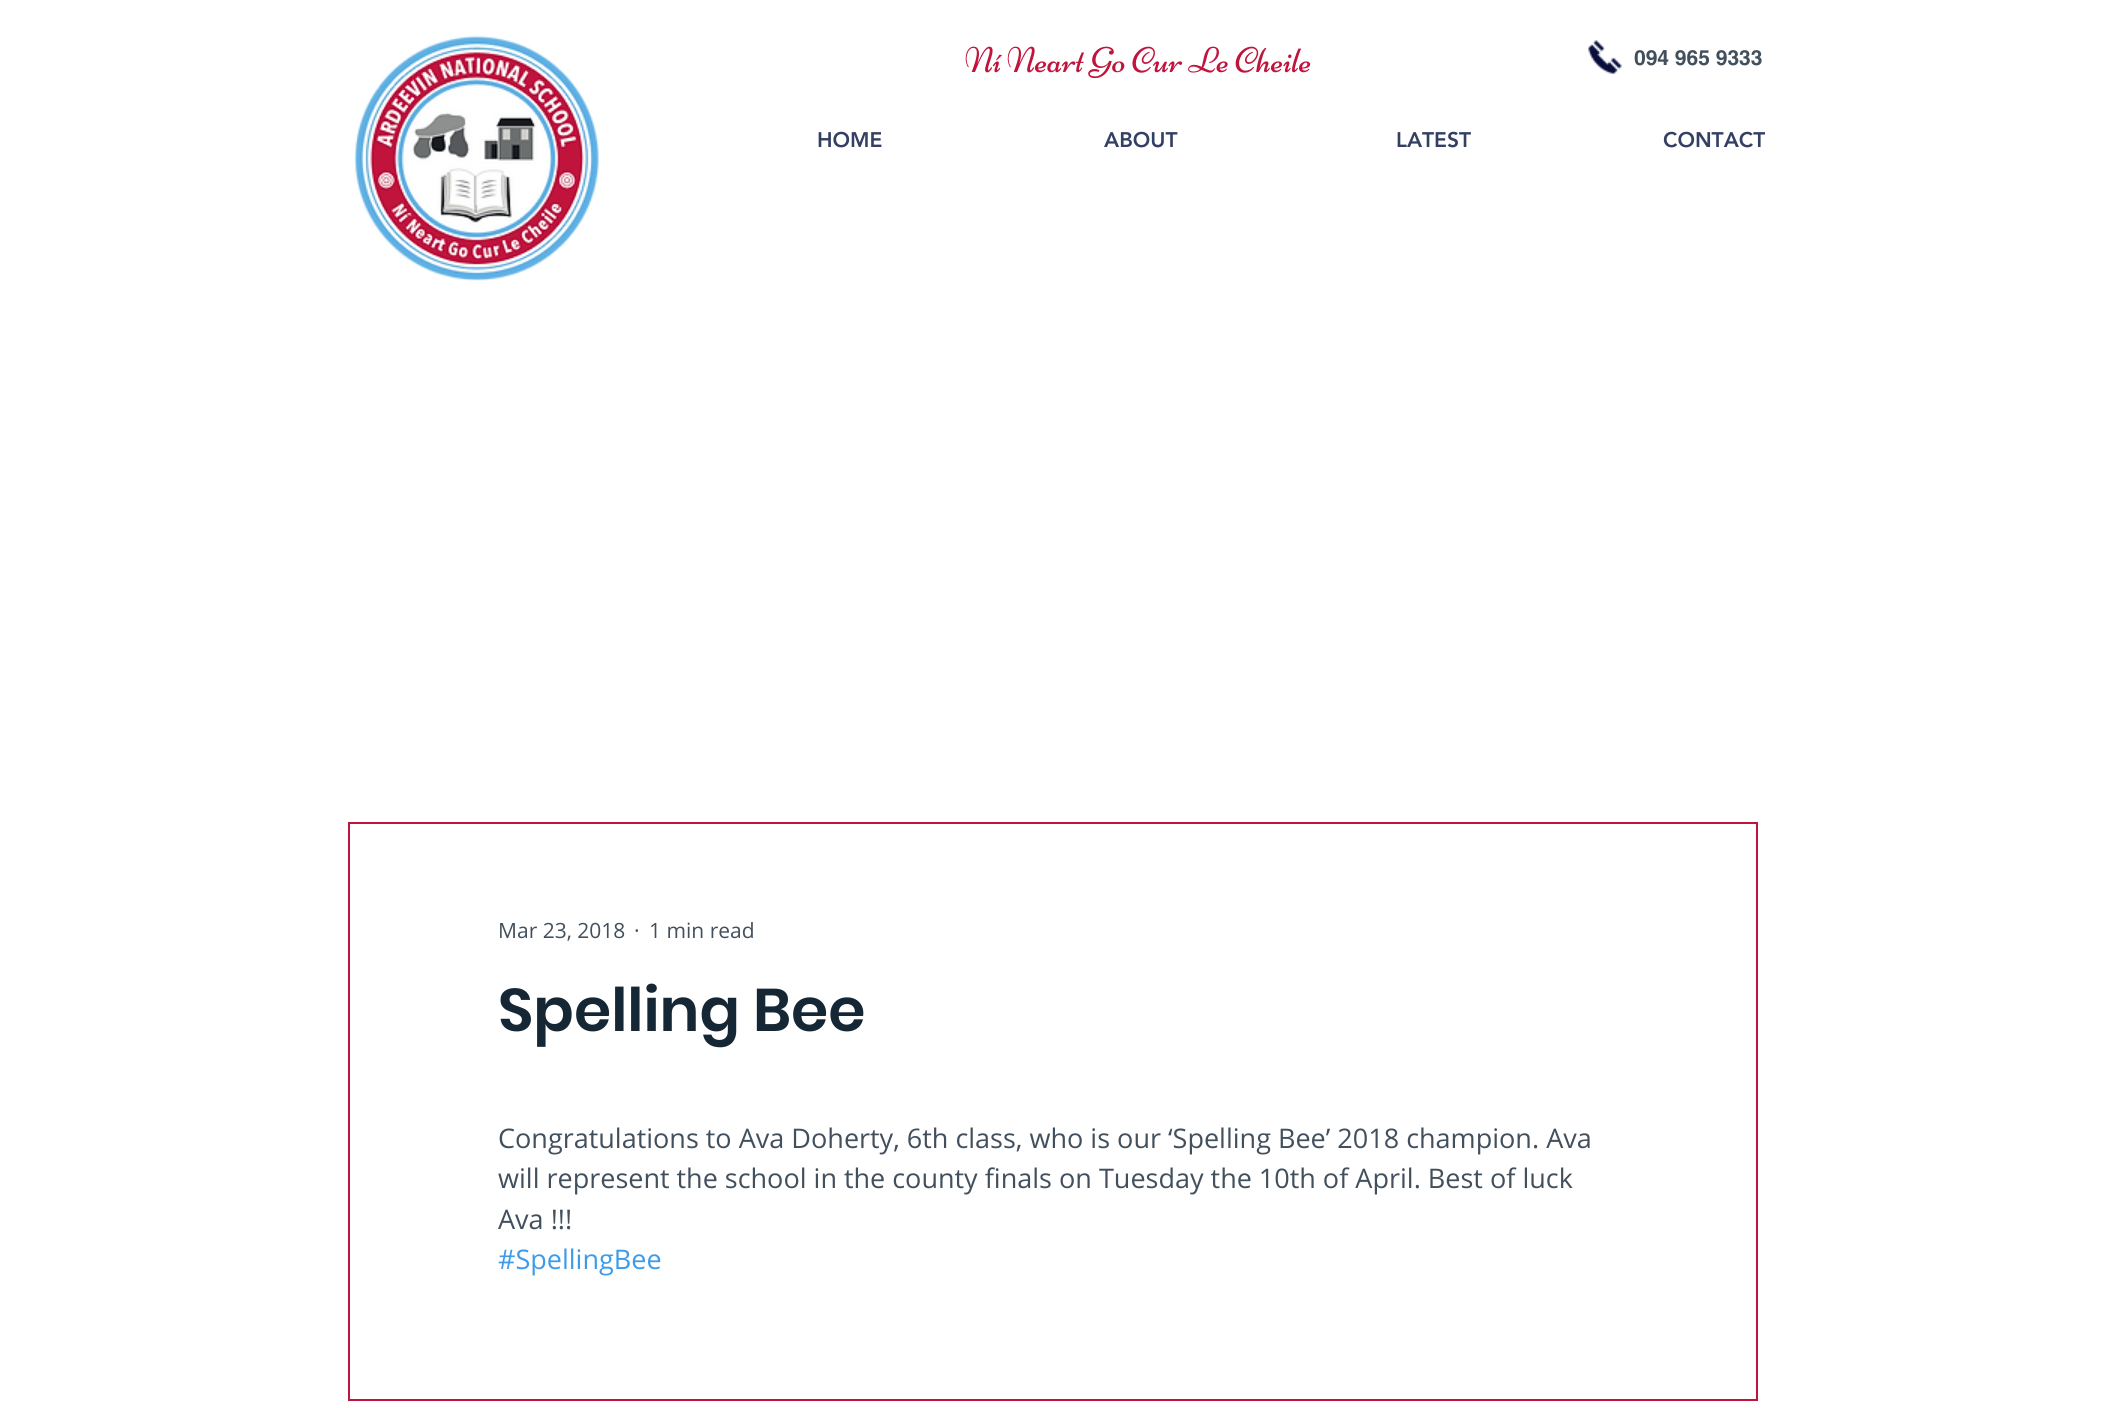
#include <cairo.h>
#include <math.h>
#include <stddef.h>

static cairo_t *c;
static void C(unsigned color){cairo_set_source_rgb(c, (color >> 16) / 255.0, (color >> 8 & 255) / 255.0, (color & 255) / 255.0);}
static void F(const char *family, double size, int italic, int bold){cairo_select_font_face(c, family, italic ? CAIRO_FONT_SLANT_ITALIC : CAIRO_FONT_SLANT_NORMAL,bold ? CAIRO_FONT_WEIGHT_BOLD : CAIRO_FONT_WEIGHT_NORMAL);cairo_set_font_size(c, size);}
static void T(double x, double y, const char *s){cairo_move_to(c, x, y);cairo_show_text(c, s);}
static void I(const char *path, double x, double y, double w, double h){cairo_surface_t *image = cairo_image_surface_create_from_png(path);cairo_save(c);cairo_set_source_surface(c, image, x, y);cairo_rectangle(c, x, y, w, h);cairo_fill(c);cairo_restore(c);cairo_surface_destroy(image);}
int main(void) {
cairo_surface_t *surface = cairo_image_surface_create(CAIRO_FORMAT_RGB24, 2106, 1408);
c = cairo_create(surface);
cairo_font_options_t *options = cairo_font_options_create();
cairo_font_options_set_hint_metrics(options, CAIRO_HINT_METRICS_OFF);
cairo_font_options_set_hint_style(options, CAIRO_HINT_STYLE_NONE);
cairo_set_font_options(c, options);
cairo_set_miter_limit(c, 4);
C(0xffffff);
cairo_paint(c);
I("1.png",354,35,245,246);
I("2.png",965,46,346,33);
I("3.png",1588,40,34,35);
F("helvetica",21,0,1);
C(0x42505d);
T(1634,65,"094 965 9333");
F("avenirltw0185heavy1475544 Black",21,0,0);
C(0x343f64);
T(817,147,"HOME");
T(1104,147,"ABOUT");
T(1396,147,"LATEST");
T(1663,147,"CONTACT");
cairo_rectangle(c,349,823,1408,577);
C(0xc0143c);
cairo_stroke(c);
F("Open Sans",21,0,0);
C(0x42505d);
T(498,938,"Mar 23, 2018");
T(634,938,"·");
T(649,938,"1 min read");
F("Poppins SemiBold",60,0,0);
C(0x152635);
T(498,1031,"Spelling Bee");
F("Open Sans",27,0,0);
C(0x42505d);
T(498,1148,"Congratulations to Ava Doherty, 6th class, who is our ‘Spelling Bee’ 2018 champion. Ava");
T(498,1188,"will represent the school in the county finals on Tuesday the 10th of April. Best of luck");
T(498,1229,"Ava !!!");
C(0x3d9be9);
T(498,1269,"#SpellingBee");
cairo_surface_write_to_png(surface, "o.png");
cairo_font_options_destroy(options);
cairo_destroy(c);
cairo_surface_destroy(surface);
return 0;
}
